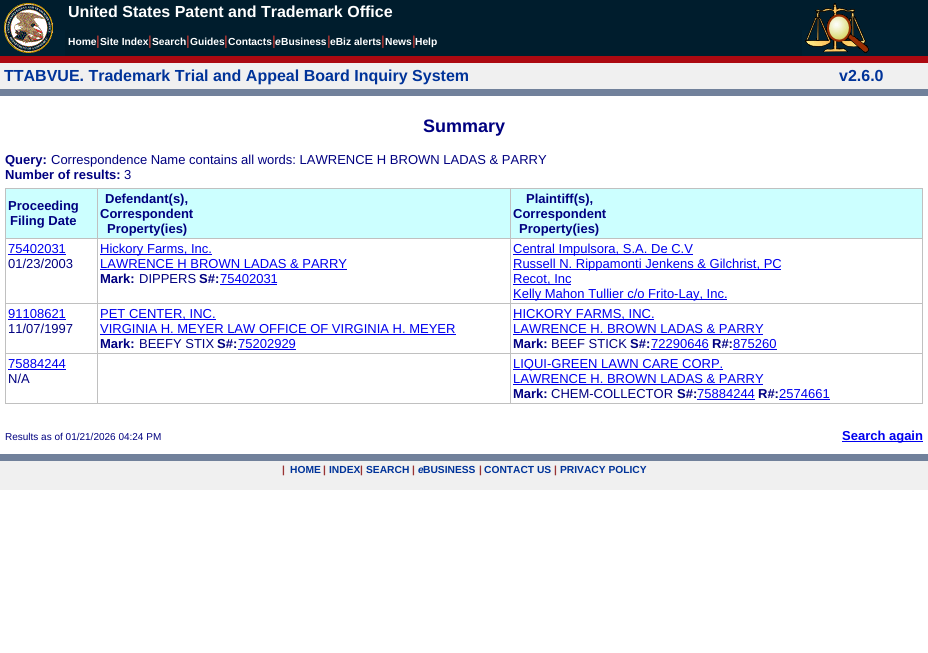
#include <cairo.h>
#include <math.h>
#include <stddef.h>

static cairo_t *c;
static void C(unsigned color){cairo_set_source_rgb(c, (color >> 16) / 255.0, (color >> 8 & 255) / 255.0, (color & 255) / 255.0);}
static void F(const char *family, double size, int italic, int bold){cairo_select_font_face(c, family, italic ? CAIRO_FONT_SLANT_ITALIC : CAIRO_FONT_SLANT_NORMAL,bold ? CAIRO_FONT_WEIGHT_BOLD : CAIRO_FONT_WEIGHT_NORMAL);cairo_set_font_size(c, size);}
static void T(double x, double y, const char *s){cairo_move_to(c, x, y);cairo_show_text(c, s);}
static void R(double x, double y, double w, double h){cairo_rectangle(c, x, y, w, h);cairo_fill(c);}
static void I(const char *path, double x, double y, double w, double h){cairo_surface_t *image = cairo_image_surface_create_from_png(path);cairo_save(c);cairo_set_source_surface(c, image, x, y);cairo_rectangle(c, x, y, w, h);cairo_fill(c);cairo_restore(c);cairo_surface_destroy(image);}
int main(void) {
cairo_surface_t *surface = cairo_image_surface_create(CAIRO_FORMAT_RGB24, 928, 653);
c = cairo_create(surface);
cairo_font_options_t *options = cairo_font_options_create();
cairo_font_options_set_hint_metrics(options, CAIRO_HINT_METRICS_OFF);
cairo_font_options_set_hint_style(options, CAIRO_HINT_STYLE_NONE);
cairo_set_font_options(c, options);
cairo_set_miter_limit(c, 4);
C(0xffffff);
cairo_paint(c);
C(0x001d2d);
R(0,0,928,30);
C(0x002032);
R(0,30,928,26);
I("1.png",4,3,49,50);
F("Liberation Sans",16,0,1);
C(0xffffff);
T(68,17,"United States Patent and Trademark Office");
I("2.png",805,3,64,50);
C(0x001d2d);
R(65,30,737,26);
F("Liberation Sans",10.25,0,1);
C(0xffffff);
T(68,45,"Home");
F("Liberation Sans",13,0,1);
C(0x993333);
T(96,45,"|");
F("Liberation Sans",10.25,0,1);
C(0xffffff);
T(100,45,"Site Index");
F("Liberation Sans",13,0,1);
C(0x993333);
T(148,45,"|");
F("Liberation Sans",10.25,0,1);
C(0xffffff);
T(152,45,"Search");
F("Liberation Sans",13,0,1);
C(0x993333);
T(186,45,"|");
F("Liberation Sans",10.25,0,1);
C(0xffffff);
T(190,45,"Guides");
F("Liberation Sans",13,0,1);
C(0x993333);
T(224,45,"|");
F("Liberation Sans",10.25,0,1);
C(0xffffff);
T(228,45,"Contacts");
F("Liberation Sans",13,0,1);
C(0x993333);
T(272,45,"|");
F("Liberation Sans",10.25,1,1);
C(0xffffff);
T(275,45,"e");
F("Liberation Sans",10.25,0,1);
T(281,45,"Business");
F("Liberation Sans",13,0,1);
C(0x993333);
T(327,45,"|");
F("Liberation Sans",10.25,0,1);
C(0xffffff);
T(330,45,"eBiz alerts");
F("Liberation Sans",13,0,1);
C(0x993333);
T(381,45,"|");
F("Liberation Sans",10.25,0,1);
C(0xffffff);
T(385,45,"News");
F("Liberation Sans",13,0,1);
C(0x993333);
T(412,45,"|");
F("Liberation Sans",10.25,0,1);
C(0xffffff);
T(415,45,"Help");
C(0xac0911);
R(0,56,928,7);
C(0xf0f0f0);
R(0,63,928,26);
F("Liberation Sans",16,0,1);
C(0x003399);
T(4,81,"TTABVUE. Trademark Trial and Appeal Board Inquiry System");
T(839,81,"v2.6.0");
C(0x71819b);
R(0,89,928,7);
F("Liberation Sans",18,0,1);
C(0x000080);
T(423,132,"Summary");
F("Liberation Sans",13,0,1);
T(5,164,"Query:");
F("Liberation Sans",13,0,0);
T(51,164,"Correspondence Name contains all words: LAWRENCE H BROWN LADAS & PARRY");
F("Liberation Sans",13,0,1);
T(5,179,"Number of results:");
F("Liberation Sans",13,0,0);
T(124,179,"3");
C(0xc0c0c0);
R(5,188,918,216);
C(0xccffff);
R(6,189,91,49);
F("Liberation Sans",13,0,1);
C(0x000080);
T(8,210,"Proceeding");
T(10,225,"Filing Date");
C(0xccffff);
R(98,189,412,49);
C(0x000080);
T(105,203,"Defendant(s),");
T(100,218,"Correspondent");
T(107,233,"Property(ies)");
C(0xccffff);
R(511,189,411,49);
C(0x000080);
T(526,203,"Plaintiff(s),");
T(513,218,"Correspondent");
T(519,233,"Property(ies)");
C(0xffffff);
R(6,239,91,64);
F("Liberation Sans",13,0,0);
C(0x0000ee);
T(8,253,"75402031");
R(8,254,58,1);
C(0x000080);
T(8,268,"01/23/2003");
C(0xffffff);
R(98,239,412,64);
C(0x0000ee);
R(100,254,112,1);
T(100,253,"Hickory Farms, Inc.");
T(100,268,"LAWRENCE H BROWN LADAS & PARRY");
R(100,269,247,1);
F("Liberation Sans",13,0,1);
C(0x000080);
T(100,283,"Mark:");
F("Liberation Sans",13,0,0);
T(139,283,"DIPPERS");
F("Liberation Sans",13,0,1);
T(199,283,"S#:");
F("Liberation Sans",13,0,0);
C(0x0000ee);
T(220,283,"75402031");
R(220,284,57,1);
C(0xffffff);
R(511,239,411,64);
C(0x0000ee);
R(513,254,180,1);
T(513,253,"Central Impulsora, S.A. De C.V");
R(513,269,268,1);
T(513,268,"Russell N. Rippamonti Jenkens & Gilchrist, PC");
R(513,284,58,1);
T(513,283,"Recot, Inc");
R(513,299,214,1);
T(513,298,"Kelly Mahon Tullier c/o Frito-Lay, Inc.");
C(0xffffff);
R(6,304,91,49);
C(0x0000ee);
T(8,318,"91108621");
R(8,319,58,1);
C(0x000080);
T(8,333,"11/07/1997");
C(0xffffff);
R(98,304,412,49);
C(0x0000ee);
R(100,319,116,1);
T(100,318,"PET CENTER, INC.");
T(100,333,"VIRGINIA H. MEYER LAW OFFICE OF VIRGINIA H. MEYER");
R(100,334,356,1);
F("Liberation Sans",13,0,1);
C(0x000080);
T(100,348,"Mark:");
F("Liberation Sans",13,0,0);
T(139,348,"BEEFY STIX");
F("Liberation Sans",13,0,1);
T(217,348,"S#:");
F("Liberation Sans",13,0,0);
C(0x0000ee);
T(238,348,"75202929");
R(238,349,58,1);
C(0xffffff);
R(511,304,411,49);
C(0x0000ee);
R(513,319,141,1);
T(513,318,"HICKORY FARMS, INC.");
T(513,333,"LAWRENCE H. BROWN LADAS & PARRY");
R(513,334,250,1);
F("Liberation Sans",13,0,1);
C(0x000080);
T(513,348,"Mark:");
F("Liberation Sans",13,0,0);
T(551,348,"BEEF STICK");
F("Liberation Sans",13,0,1);
T(630,348,"S#:");
F("Liberation Sans",13,0,0);
C(0x0000ee);
T(651,348,"72290646");
R(651,349,58,1);
F("Liberation Sans",13,0,1);
C(0x000080);
T(712,348,"R#:");
F("Liberation Sans",13,0,0);
C(0x0000ee);
T(733,348,"875260");
R(733,349,44,1);
C(0xffffff);
R(6,354,91,49);
C(0x0000ee);
T(8,368,"75884244");
R(8,369,58,1);
C(0x000080);
T(8,383,"N/A");
C(0xffffff);
R(98,354,412,49);
R(511,354,411,49);
C(0x0000ee);
R(513,369,210,1);
T(513,368,"LIQUI-GREEN LAWN CARE CORP.");
T(513,383,"LAWRENCE H. BROWN LADAS & PARRY");
R(513,384,250,1);
F("Liberation Sans",13,0,1);
C(0x000080);
T(513,398,"Mark:");
F("Liberation Sans",13,0,0);
T(551,398,"CHEM-COLLECTOR");
F("Liberation Sans",13,0,1);
T(677,398,"S#:");
F("Liberation Sans",13,0,0);
C(0x0000ee);
T(697,398,"75884244");
R(697,399,58,1);
F("Liberation Sans",13,0,1);
C(0x000080);
T(758,398,"R#:");
C(0x0000ee);
R(779,399,51,1);
F("Liberation Sans",13,0,0);
T(779,398,"2574661");
F("Liberation Sans",10,0,0);
C(0x000080);
T(5,440,"Results as of 01/21/2026 04:24 PM");
C(0x0000ee);
R(842,441,81,1);
F("Liberation Sans",13,0,1);
T(842,440,"Search again");
C(0x71819b);
R(0,454,928,7);
C(0xf0f0f0);
R(0,461,928,29);
F("Liberation Sans",10.25,0,1);
C(0x993333);
T(282,473,"|");
C(0x003399);
T(290,473,"HOME");
C(0x993333);
T(323,473,"|");
C(0x003399);
T(329,473,"INDEX");
C(0x993333);
T(360,473,"|");
C(0x003399);
T(366,473,"SEARCH");
C(0x993333);
T(412,473,"|");
F("Liberation Sans",10.25,1,1);
C(0x003399);
T(418,473,"e");
F("Liberation Sans",10.25,0,1);
T(423,473,"BUSINESS");
C(0x993333);
T(479,473,"|");
C(0x003399);
T(484,473,"CONTACT US");
C(0x993333);
T(554,473,"|");
C(0x003399);
T(560,473,"PRIVACY POLICY");
cairo_surface_write_to_png(surface, "o.png");
cairo_font_options_destroy(options);
cairo_destroy(c);
cairo_surface_destroy(surface);
return 0;
}
